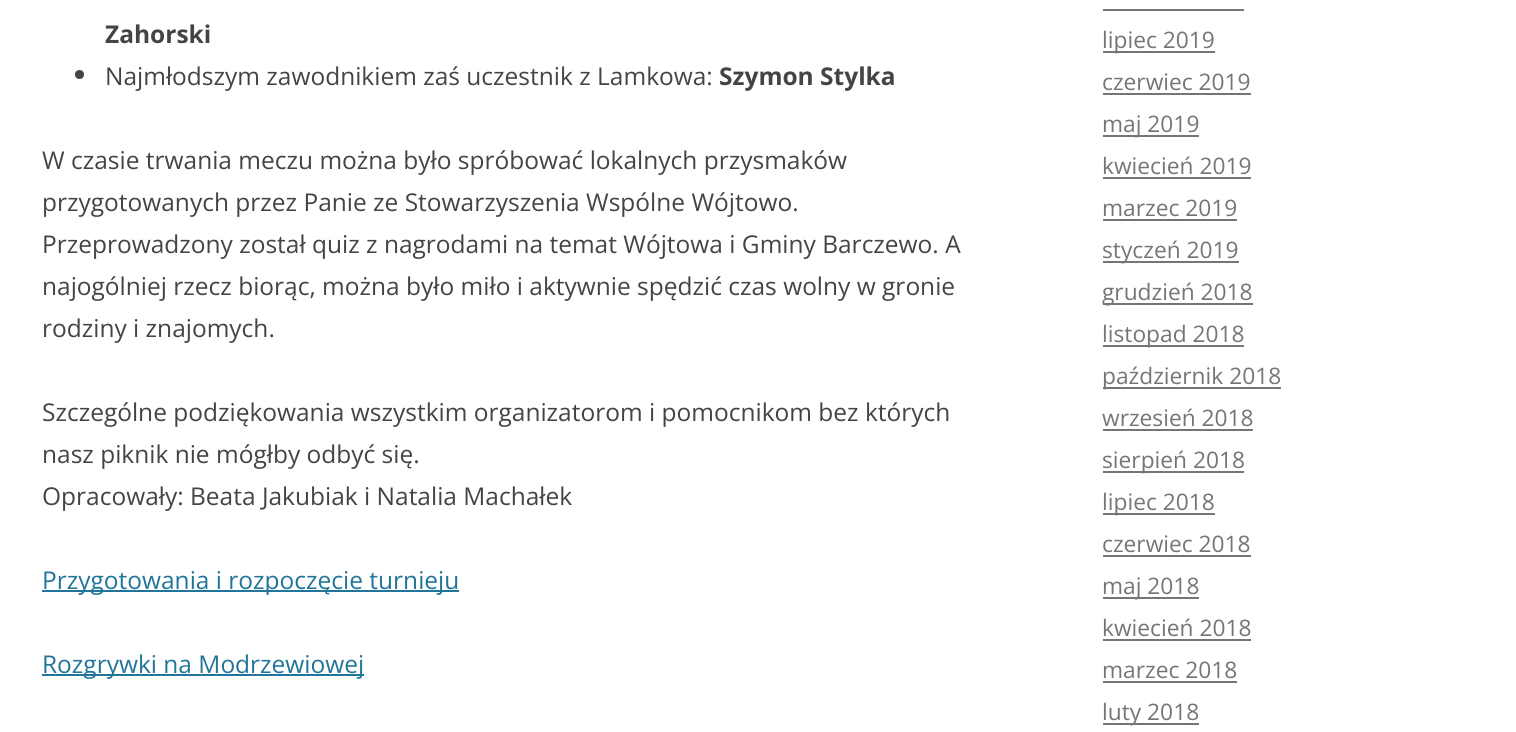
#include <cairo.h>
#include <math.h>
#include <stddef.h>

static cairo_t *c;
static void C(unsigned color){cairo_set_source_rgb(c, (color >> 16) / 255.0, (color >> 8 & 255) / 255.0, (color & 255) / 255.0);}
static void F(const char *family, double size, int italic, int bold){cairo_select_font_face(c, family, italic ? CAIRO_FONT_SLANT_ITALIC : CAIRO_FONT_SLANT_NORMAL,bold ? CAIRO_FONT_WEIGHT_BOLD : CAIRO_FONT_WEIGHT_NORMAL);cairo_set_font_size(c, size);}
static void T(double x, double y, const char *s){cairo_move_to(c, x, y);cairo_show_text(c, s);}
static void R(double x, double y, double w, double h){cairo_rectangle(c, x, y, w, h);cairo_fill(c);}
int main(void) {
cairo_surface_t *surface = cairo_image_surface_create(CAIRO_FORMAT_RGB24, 1516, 732);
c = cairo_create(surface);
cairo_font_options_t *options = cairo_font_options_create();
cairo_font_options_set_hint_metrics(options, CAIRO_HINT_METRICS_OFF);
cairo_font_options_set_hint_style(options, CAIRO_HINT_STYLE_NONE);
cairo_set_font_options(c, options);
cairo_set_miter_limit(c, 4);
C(0xffffff);
cairo_paint(c);
F("Open Sans",24.5,0,1);
C(0x444444);
T(105,43,"Zahorski");
cairo_new_path(c);
cairo_arc(c,79.5,74.5,4.5,0,2 * M_PI);
cairo_fill(c);
F("Open Sans",24.5,0,0);
T(105,85,"Najmłodszym zawodnikiem zaś uczestnik z Lamkowa:");
F("Open Sans",24.5,0,1);
T(719,85,"Szymon Stylka");
F("Open Sans",24.5,0,0);
T(42,169,"W czasie trwania meczu można było spróbować lokalnych przysmaków");
T(42,211,"przygotowanych przez Panie ze Stowarzyszenia Wspólne Wójtowo.");
T(42,253,"Przeprowadzony został quiz z nagrodami na temat Wójtowa i Gminy Barczewo. A");
T(42,295,"najogólniej rzecz biorąc, można było miło i aktywnie spędzić czas wolny w gronie");
T(42,337,"rodziny i znajomych.");
T(42,421,"Szczególne podziękowania wszystkim organizatorom i pomocnikom bez których");
T(42,463,"nasz piknik nie mógłby odbyć się.");
T(42,505,"Opracowały: Beata Jakubiak i Natalia Machałek");
C(0x21759b);
R(42,590,417,2);
T(42,589,"Przygotowania i rozpoczęcie turnieju");
R(42,674,322,2);
T(42,673,"Rozgrywki na Modrzewiowej");
C(0x757575);
R(1103,9,141,2);
R(1103,51,112,2);
F("Open Sans",22.75,0,0);
T(1102,48,"lipiec 2019");
T(1102,90,"czerwiec 2019");
R(1103,93,148,2);
R(1103,135,96,2);
T(1102,132,"maj 2019");
T(1102,174,"kwiecień 2019");
R(1103,177,148,2);
T(1102,216,"marzec 2019");
R(1103,219,134,2);
R(1103,261,136,2);
T(1102,258,"styczeń 2019");
R(1103,303,150,2);
T(1102,300,"grudzień 2018");
R(1103,345,141,2);
T(1102,342,"listopad 2018");
R(1103,387,178,2);
T(1102,384,"październik 2018");
T(1102,426,"wrzesień 2018");
R(1103,429,150,2);
R(1103,471,141,2);
T(1102,468,"sierpień 2018");
R(1103,513,112,2);
T(1102,510,"lipiec 2018");
T(1102,552,"czerwiec 2018");
R(1103,555,148,2);
R(1103,597,96,2);
T(1102,594,"maj 2018");
T(1102,636,"kwiecień 2018");
R(1103,639,148,2);
T(1102,678,"marzec 2018");
R(1103,681,134,2);
R(1103,723,96,2);
T(1102,720,"luty 2018");
cairo_surface_write_to_png(surface, "o.png");
cairo_font_options_destroy(options);
cairo_destroy(c);
cairo_surface_destroy(surface);
return 0;
}
